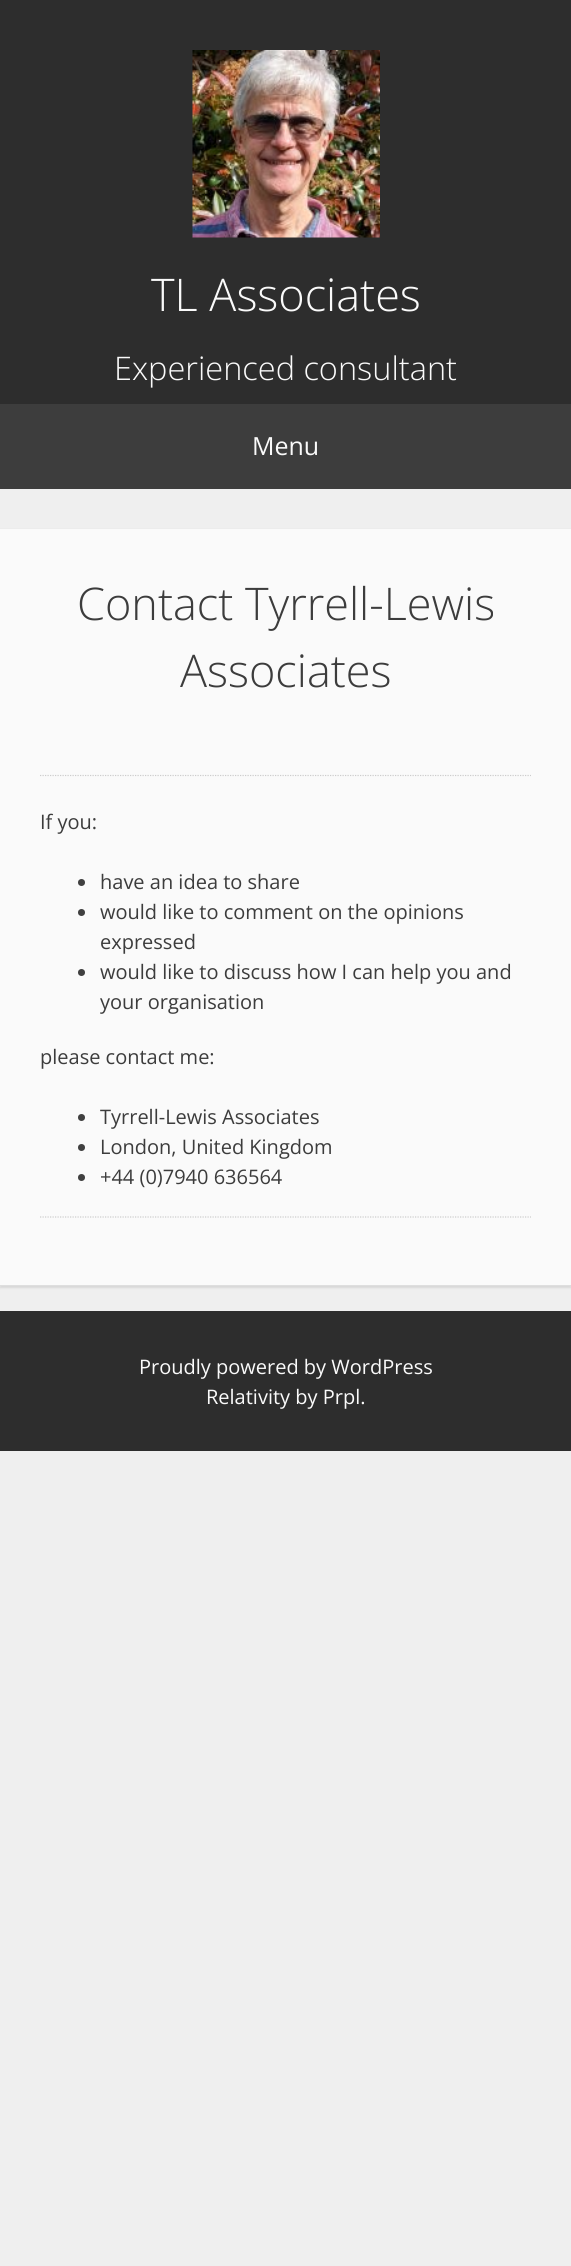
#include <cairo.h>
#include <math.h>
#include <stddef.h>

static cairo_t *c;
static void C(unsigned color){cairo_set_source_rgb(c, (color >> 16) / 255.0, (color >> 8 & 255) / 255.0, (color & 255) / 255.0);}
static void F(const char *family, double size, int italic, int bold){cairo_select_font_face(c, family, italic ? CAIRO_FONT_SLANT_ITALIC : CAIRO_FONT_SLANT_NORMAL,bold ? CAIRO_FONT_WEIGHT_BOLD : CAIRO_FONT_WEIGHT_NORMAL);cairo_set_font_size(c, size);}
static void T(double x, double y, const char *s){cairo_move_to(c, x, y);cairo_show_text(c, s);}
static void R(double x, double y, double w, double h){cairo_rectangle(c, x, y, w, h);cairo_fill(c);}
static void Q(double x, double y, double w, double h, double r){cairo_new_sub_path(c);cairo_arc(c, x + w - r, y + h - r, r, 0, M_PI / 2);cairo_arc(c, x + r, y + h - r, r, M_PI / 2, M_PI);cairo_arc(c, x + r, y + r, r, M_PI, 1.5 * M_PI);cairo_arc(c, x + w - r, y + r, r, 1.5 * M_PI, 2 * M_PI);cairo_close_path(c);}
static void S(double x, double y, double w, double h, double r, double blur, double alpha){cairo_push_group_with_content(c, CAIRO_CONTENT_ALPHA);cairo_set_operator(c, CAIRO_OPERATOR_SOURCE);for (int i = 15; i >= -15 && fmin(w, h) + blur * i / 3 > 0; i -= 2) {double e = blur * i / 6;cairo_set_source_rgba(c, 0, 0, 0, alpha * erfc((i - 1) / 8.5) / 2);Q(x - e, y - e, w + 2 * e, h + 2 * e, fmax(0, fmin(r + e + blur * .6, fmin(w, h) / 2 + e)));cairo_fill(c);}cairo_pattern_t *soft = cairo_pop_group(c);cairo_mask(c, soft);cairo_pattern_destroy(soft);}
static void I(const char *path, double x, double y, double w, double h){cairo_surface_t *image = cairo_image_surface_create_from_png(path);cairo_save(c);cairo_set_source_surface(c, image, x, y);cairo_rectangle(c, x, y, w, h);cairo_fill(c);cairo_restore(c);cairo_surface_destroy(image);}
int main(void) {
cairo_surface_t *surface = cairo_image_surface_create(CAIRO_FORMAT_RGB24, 571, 2266);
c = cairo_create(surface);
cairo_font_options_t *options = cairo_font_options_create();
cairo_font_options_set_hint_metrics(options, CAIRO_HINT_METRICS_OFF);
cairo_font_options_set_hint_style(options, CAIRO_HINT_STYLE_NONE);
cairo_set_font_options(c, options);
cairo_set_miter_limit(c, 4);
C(0xefefef);
cairo_paint(c);
C(0x2d2d2d);
R(0,0,571,404);
I("1.png",192,50,188,188);
F("Open Sans Light",45,0,0);
C(0xfafafa);
T(151,311,"TL Associates");
F("Open Sans Light",32.5,0,0);
T(114,380,"Experienced consultant");
C(0x3d3d3d);
R(0,404,571,85);
F("Open Sans",25,0,0);
C(0xfafafa);
T(252,455,"Menu");
C(0x000000);
S(0,530,571,758,0,1,.1);
C(0xfafafa);
R(0,529,571,756);
C(0xdedede);
R(0,1285,571,1);
F("Open Sans Light",45,0,0);
C(0x3c3c3c);
T(77,620,"Contact Tyrrell-Lewis");
T(180,687,"Associates");
cairo_new_path(c);
cairo_move_to(c,40,775.5);
cairo_line_to(c,531,775.5);
C(0xcccccc);
cairo_set_line_width(c,1.2);
cairo_set_dash(c,(double[]){1.25,1.25},2,0);
cairo_stroke(c);
F("Open Sans",20,0,0);
C(0x3c3c3c);
T(40,829,"If you:");
C(0x404040);
cairo_new_path(c);
cairo_arc(c,81.5,882.5,3.5,0,2 * M_PI);
cairo_fill(c);
C(0x3c3c3c);
T(100,889,"have an idea to share");
C(0x404040);
cairo_new_path(c);
cairo_arc(c,81.5,912.5,3.5,0,2 * M_PI);
cairo_fill(c);
C(0x3c3c3c);
T(100,919,"would like to comment on the opinions");
T(100,949,"expressed");
C(0x404040);
cairo_new_path(c);
cairo_arc(c,81.5,972.5,3.5,0,2 * M_PI);
cairo_fill(c);
C(0x3c3c3c);
T(100,979,"would like to discuss how I can help you and");
T(100,1009,"your organisation");
T(40,1064,"please contact me:");
C(0x404040);
cairo_new_path(c);
cairo_arc(c,81.5,1117.5,3.5,0,2 * M_PI);
cairo_fill(c);
C(0x3c3c3c);
T(100,1124,"Tyrrell-Lewis Associates");
C(0x404040);
cairo_new_path(c);
cairo_arc(c,81.5,1147.5,3.5,0,2 * M_PI);
cairo_fill(c);
C(0x3c3c3c);
T(100,1154,"London, United Kingdom");
C(0x404040);
cairo_new_path(c);
cairo_arc(c,81.5,1177.5,3.5,0,2 * M_PI);
cairo_fill(c);
C(0x3c3c3c);
T(100,1184,"+44 (0)7940 636564");
cairo_new_path(c);
cairo_move_to(c,40,1217);
cairo_line_to(c,531,1217);
C(0xcccccc);
cairo_stroke(c);
C(0x2d2d2d);
R(0,1311,571,140);
C(0xfafafa);
T(139,1374,"Proudly powered by WordPress");
T(206,1404,"Relativity by Prpl.");
cairo_surface_write_to_png(surface, "o.png");
cairo_font_options_destroy(options);
cairo_destroy(c);
cairo_surface_destroy(surface);
return 0;
}
